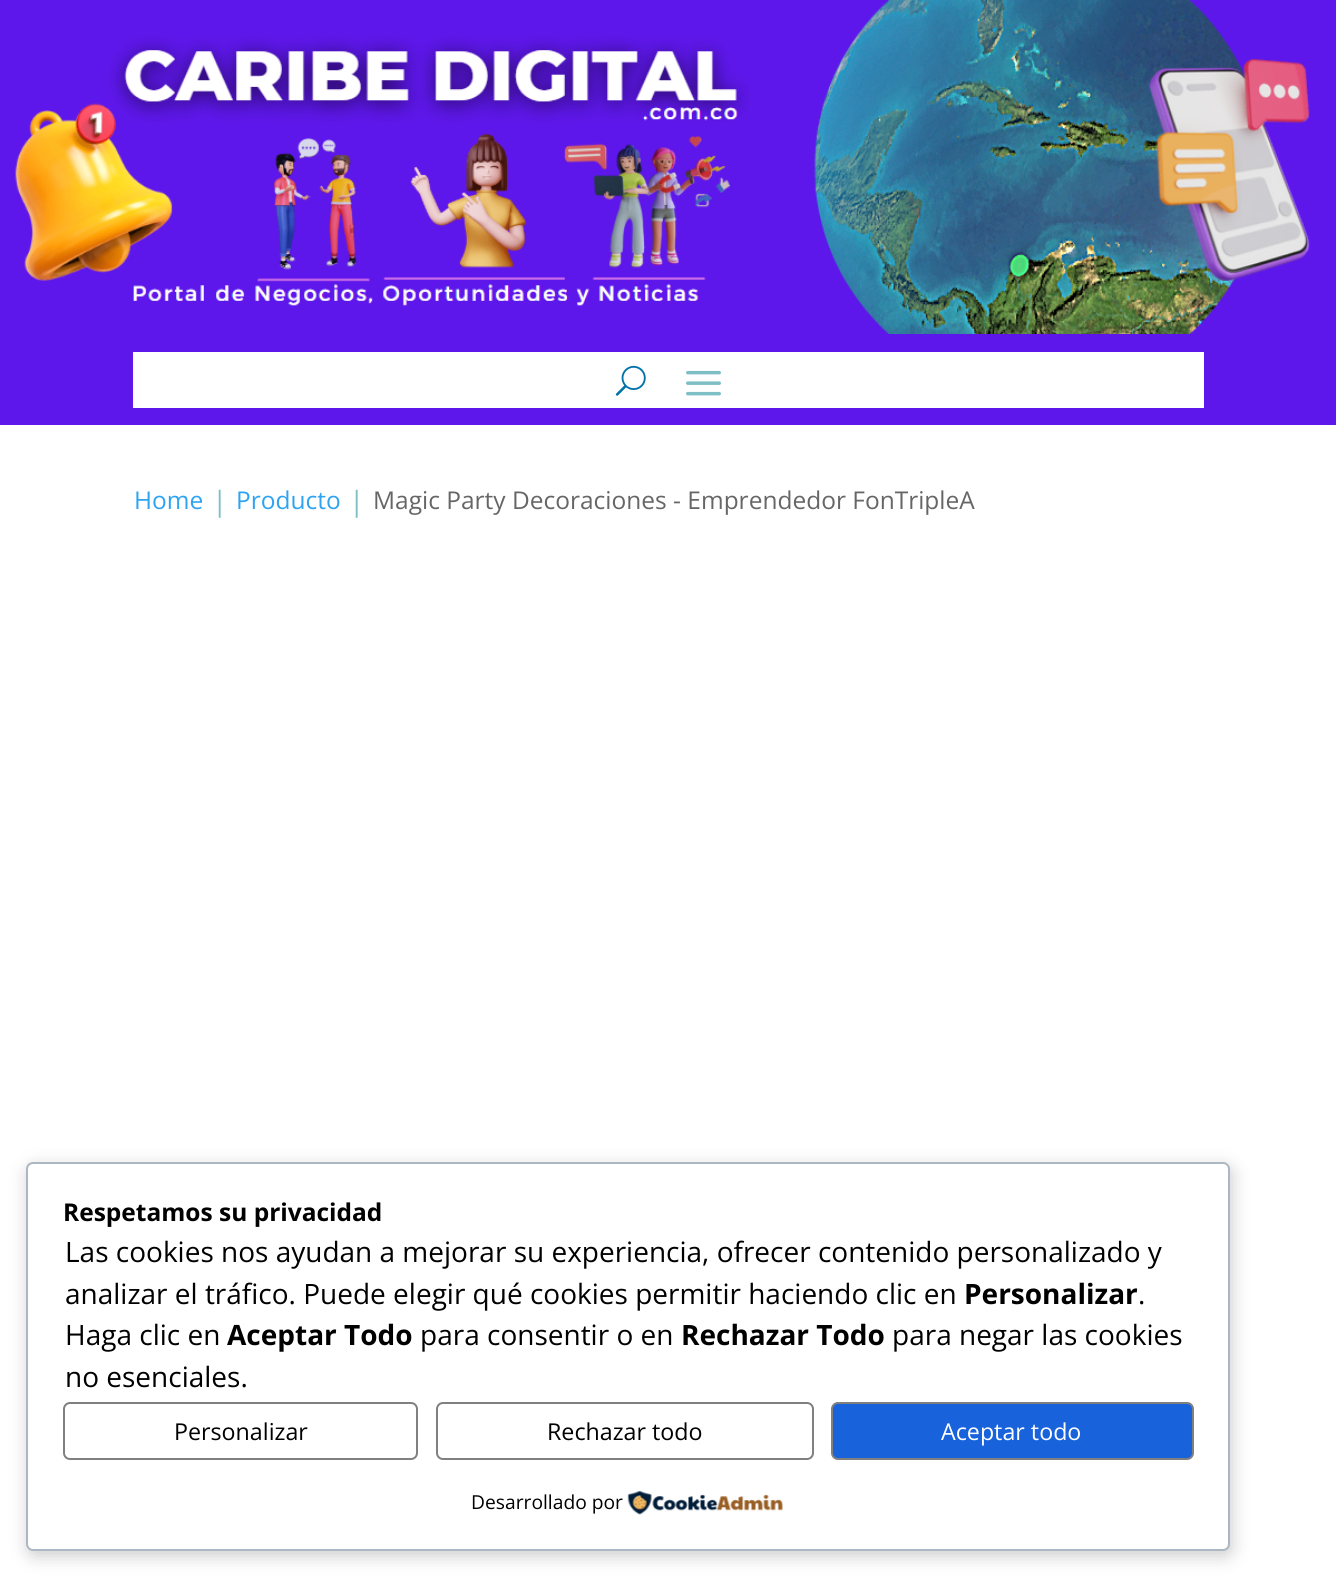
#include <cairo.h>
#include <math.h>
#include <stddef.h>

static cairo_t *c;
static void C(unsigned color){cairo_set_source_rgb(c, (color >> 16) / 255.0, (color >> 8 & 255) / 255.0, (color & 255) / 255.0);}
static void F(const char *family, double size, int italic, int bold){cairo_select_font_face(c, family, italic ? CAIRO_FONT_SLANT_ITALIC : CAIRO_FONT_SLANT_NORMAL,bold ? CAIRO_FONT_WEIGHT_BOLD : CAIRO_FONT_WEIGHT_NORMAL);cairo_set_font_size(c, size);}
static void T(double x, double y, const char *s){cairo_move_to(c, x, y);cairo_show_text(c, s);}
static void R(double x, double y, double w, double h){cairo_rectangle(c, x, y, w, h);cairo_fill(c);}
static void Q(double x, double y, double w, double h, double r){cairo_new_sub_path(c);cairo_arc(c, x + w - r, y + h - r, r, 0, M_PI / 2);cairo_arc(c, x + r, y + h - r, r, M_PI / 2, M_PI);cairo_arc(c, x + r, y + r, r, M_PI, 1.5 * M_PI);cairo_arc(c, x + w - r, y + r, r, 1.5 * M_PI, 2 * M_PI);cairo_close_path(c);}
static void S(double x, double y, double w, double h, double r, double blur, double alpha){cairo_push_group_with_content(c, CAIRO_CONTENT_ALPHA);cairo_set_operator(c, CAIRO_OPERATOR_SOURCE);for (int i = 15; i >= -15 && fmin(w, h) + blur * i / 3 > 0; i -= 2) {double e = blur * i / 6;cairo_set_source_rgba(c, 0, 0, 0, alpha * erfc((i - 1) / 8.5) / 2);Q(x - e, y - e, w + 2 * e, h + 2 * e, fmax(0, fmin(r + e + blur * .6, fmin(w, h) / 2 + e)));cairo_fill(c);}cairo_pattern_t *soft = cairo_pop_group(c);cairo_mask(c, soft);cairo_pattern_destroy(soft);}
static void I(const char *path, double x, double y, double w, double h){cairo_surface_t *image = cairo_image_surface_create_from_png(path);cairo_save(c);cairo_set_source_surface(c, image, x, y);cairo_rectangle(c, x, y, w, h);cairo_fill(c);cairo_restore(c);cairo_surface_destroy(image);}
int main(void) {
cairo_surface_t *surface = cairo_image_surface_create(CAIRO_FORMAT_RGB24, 1336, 1585);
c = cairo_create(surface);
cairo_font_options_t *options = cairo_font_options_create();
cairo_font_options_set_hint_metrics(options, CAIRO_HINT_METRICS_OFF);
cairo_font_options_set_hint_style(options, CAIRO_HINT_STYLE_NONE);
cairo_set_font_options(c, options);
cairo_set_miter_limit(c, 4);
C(0xffffff);
cairo_paint(c);
C(0x5e17eb);
R(0,0,1336,425);
I("1.png",15,0,1295,334);
C(0xffffff);
R(133,352,1071,56);
I("2.png",615,365,31,31);
I("3.png",686,370,35,26);
F("Open Sans",24.5,0,0);
C(0x2ea3f2);
T(134,509,"Home");
F("Open Sans",28,0,0);
C(0x7ebec5);
T(212,511,"|");
F("Open Sans",24.5,0,0);
C(0x2ea3f2);
T(236,509,"Producto");
F("Open Sans",28,0,0);
C(0x7ebec5);
T(349,511,"|");
F("Open Sans",24.5,0,0);
C(0x666666);
T(373,509,"Magic Party Decoraciones - Emprendedor FonTripleA");
C(0x000000);
S(28,1167,1204,389,7,9,.2);
C(0xffffff);
Q(27,1163,1202,387,6);
cairo_fill_preserve(c);
C(0xabb8c3);
cairo_stroke(c);
F("Open Sans",24.5,0,1);
C(0x000000);
T(63,1221,"Respetamos su privacidad");
F("Open Sans",28,0,0);
T(65,1262,"Las cookies nos ayudan a mejorar su experiencia, ofrecer contenido personalizado y");
T(65,1304,"analizar el tráfico. Puede elegir qué cookies permitir haciendo clic en");
F("Open Sans",28,0,1);
T(964,1304,"Personalizar");
F("Open Sans",28,0,0);
T(1138,1304,".");
T(65,1345,"Haga clic en");
F("Open Sans",28,0,1);
T(227,1345,"Aceptar Todo");
F("Open Sans",28,0,0);
T(420,1345,"para consentir o en");
F("Open Sans",28,0,1);
T(681,1345,"Rechazar Todo");
F("Open Sans",28,0,0);
T(892,1345,"para negar las cookies");
T(65,1387,"no esenciales.");
Q(64,1403,353,56,6);
C(0x808080);
cairo_stroke(c);
F("Open Sans",23.25,0,0);
C(0x000000);
T(174,1440,"Personalizar");
Q(437,1403,376,56,6);
C(0x808080);
cairo_stroke(c);
C(0x000000);
T(547,1440,"Rechazar todo");
C(0x1863dc);
Q(832,1403,361,56,6);
cairo_fill_preserve(c);
C(0x808080);
cairo_stroke(c);
C(0xffffff);
T(941,1440,"Aceptar todo");
F("Open Sans",19.25,0,0);
C(0x000000);
T(471,1509,"Desarrollado por");
I("4.png",627,1490,156,25);
cairo_surface_write_to_png(surface, "o.png");
cairo_font_options_destroy(options);
cairo_destroy(c);
cairo_surface_destroy(surface);
return 0;
}
